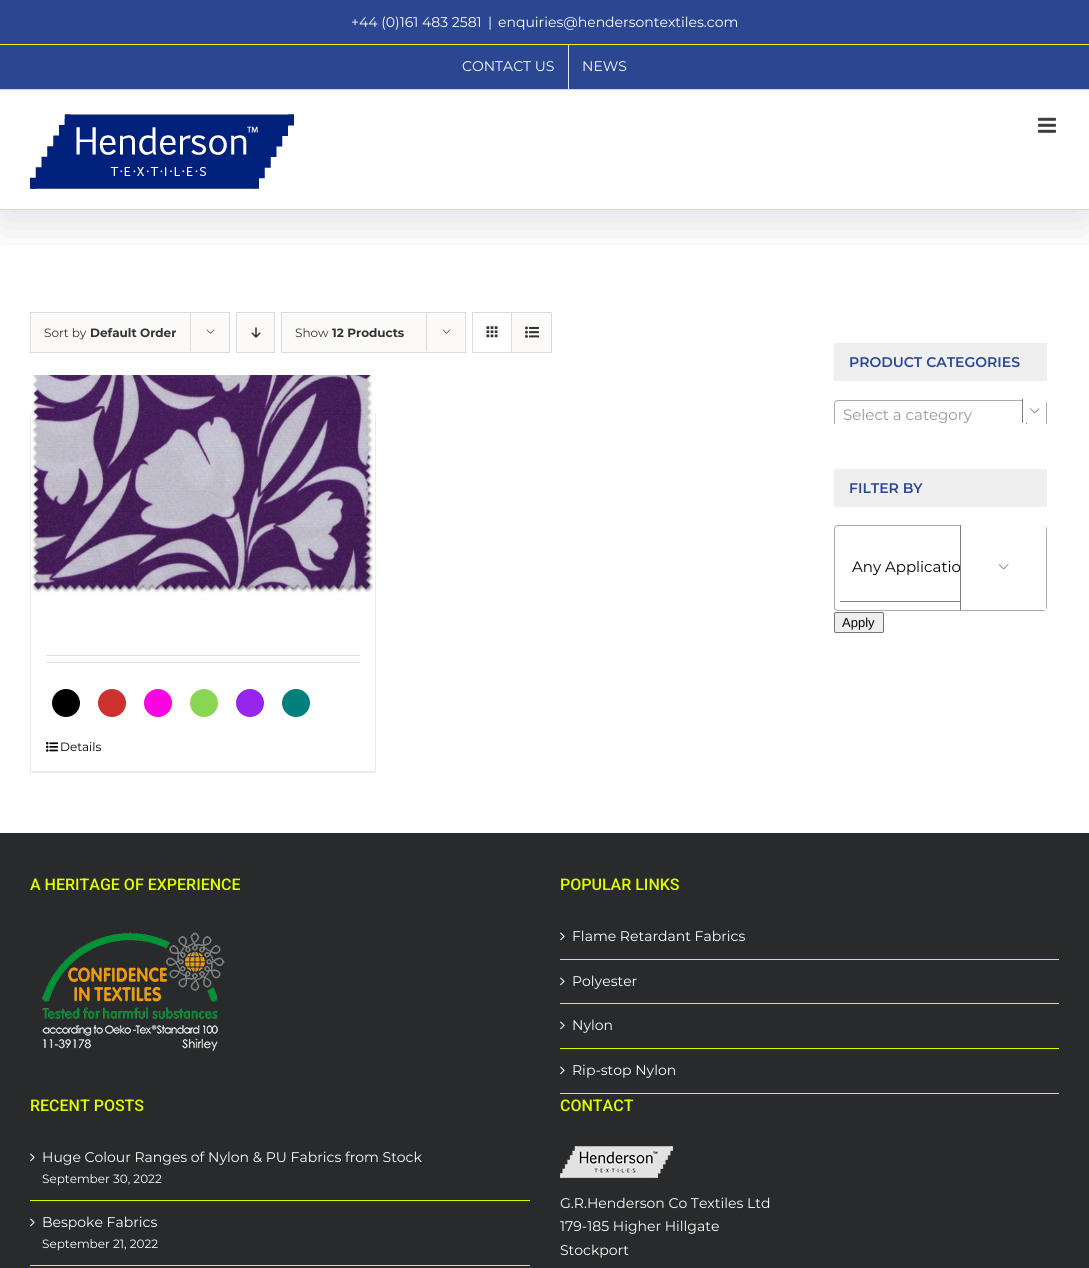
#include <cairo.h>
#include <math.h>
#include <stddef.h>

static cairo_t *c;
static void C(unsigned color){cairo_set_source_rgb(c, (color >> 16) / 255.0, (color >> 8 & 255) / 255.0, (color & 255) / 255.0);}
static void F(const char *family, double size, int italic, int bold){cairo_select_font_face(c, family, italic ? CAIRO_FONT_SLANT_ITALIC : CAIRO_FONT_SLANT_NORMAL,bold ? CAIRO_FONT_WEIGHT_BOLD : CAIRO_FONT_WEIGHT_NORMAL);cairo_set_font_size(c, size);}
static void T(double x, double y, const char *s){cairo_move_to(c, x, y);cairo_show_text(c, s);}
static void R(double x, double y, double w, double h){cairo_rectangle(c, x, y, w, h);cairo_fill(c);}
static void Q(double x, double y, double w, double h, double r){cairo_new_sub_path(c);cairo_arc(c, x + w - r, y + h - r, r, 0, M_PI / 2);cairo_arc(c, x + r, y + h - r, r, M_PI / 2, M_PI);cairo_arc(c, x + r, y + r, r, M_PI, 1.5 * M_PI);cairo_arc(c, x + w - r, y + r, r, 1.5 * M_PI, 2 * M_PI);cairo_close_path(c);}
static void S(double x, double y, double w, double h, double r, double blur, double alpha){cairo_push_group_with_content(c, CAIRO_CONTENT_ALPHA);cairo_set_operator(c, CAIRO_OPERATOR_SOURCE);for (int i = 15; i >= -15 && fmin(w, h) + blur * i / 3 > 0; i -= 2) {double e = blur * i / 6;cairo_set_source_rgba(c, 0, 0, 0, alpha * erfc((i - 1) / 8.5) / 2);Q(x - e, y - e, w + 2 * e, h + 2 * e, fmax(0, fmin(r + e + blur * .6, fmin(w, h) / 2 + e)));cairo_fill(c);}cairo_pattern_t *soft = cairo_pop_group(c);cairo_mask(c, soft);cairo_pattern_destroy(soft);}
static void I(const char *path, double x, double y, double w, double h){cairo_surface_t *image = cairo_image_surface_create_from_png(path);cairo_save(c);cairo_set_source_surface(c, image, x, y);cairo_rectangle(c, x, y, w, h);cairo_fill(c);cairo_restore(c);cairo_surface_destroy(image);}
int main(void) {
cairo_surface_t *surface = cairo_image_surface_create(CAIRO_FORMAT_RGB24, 1089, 1268);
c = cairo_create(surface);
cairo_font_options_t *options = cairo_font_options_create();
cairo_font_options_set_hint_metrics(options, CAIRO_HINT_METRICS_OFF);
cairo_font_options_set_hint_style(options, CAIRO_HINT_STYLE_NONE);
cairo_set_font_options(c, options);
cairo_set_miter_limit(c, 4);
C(0xffffff);
cairo_paint(c);
cairo_save(c);
cairo_rectangle(c,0,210,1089,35);
cairo_clip(c);
C(0x000000);
S(2,12,1085,206,0,25,.14);
cairo_restore(c);
C(0x2b4791);
R(0,0,1089,89);
C(0xdffc02);
R(0,89,1089,1);
R(0,44,1089,1);
F("Montserrat",14,0,0);
C(0xffffff);
T(351,27,"+44 (0)161 483 2581");
T(488,27,"|");
T(498,27,"enquiries@hendersontextiles.com");
T(462,71,"CONTACT US");
C(0xe8e8e8);
R(568,45,1,44);
C(0xffffff);
T(582,71,"NEWS");
C(0xdffc02);
R(0,209,1089,1);
I("1.png",30,114,264,75);
I("2.png",1038,117,18,16);
C(0xfbfaf9);
cairo_rectangle(c,30.5,312.5,199,40);
cairo_fill_preserve(c);
C(0xdbdbdb);
cairo_set_line_width(c,1);
cairo_stroke(c);
F("Montserrat",12,0,0);
C(0x333333);
T(44,337,"Sort by");
F("Montserrat",12,0,1);
T(90,337,"Default Order");
C(0xdbdbdb);
R(190,312,1,39);
I("3.png",206,329,9,5);
C(0xfbfaf9);
cairo_rectangle(c,236.5,312.5,38,40);
cairo_fill_preserve(c);
C(0xdbdbdb);
cairo_stroke(c);
I("4.png",251,327,10,11);
C(0xfbfaf9);
cairo_rectangle(c,281.5,312.5,184,40);
cairo_fill_preserve(c);
C(0xdbdbdb);
cairo_stroke(c);
F("Montserrat",12,0,0);
C(0x333333);
T(295,337,"Show");
F("Montserrat",12,0,1);
T(332,337,"12 Products");
C(0xdbdbdb);
R(426,312,1,39);
I("3.png",442,329,9,5);
cairo_rectangle(c,472.5,312.5,79,40);
cairo_stroke(c);
R(511,313,1,39);
I("5.png",486,326,12,12);
C(0xfbfaf9);
R(512,313,39,39);
I("6.png",525,326,14,12);
C(0xebeaea);
R(375,413,1,360);
R(30,771,346,2);
R(30,413,1,360);
I("7.png",31,375,344,218);
C(0xe0dede);
R(46,655,314,1);
R(46,662,314,1);
C(0x000000);
cairo_arc(c,66,703,15,0,2 * M_PI);
cairo_fill_preserve(c);
C(0xffffff);
cairo_set_line_width(c,2);
cairo_stroke(c);
C(0xcc312e);
cairo_arc(c,112,703,15,0,2 * M_PI);
cairo_fill_preserve(c);
C(0xffffff);
cairo_stroke(c);
C(0xff02e1);
cairo_arc(c,158,703,15,0,2 * M_PI);
cairo_fill_preserve(c);
C(0xffffff);
cairo_stroke(c);
C(0x89d653);
cairo_arc(c,204,703,15,0,2 * M_PI);
cairo_fill_preserve(c);
C(0xffffff);
cairo_stroke(c);
C(0x9625ed);
cairo_arc(c,250,703,15,0,2 * M_PI);
cairo_fill_preserve(c);
C(0xffffff);
cairo_stroke(c);
C(0x007f7c);
cairo_arc(c,296,703,15,0,2 * M_PI);
cairo_fill_preserve(c);
C(0xffffff);
cairo_stroke(c);
I("8.png",46,742,12,10);
F("Montserrat",12,0,0);
C(0x000000);
T(60,751,"Details");
C(0xefefef);
R(834,343,213,38);
F("Montserrat SemiBold",14,0,0);
C(0x2b4791);
T(849,367,"PRODUCT CATEGORIES");
cairo_save(c);
cairo_rectangle(c,834,399,213,25);
cairo_clip(c);
Q(834.5,400.5,212,27,3.5);
C(0xaaaaaa);
cairo_set_line_width(c,1);
cairo_stroke(c);
cairo_restore(c);
F("Montserrat",15,0,0);
C(0x999999);
T(843,420,"Select a category");
C(0x7f7f7f);
R(1026,423,1,1);
C(0xffffff);
R(1023,400,23,4);
C(0x7f7f7f);
R(1022,399,1,24);
I("9.png",1029,408,11,6);
C(0xefefef);
R(834,469,213,38);
F("Montserrat SemiBold",14,0,0);
C(0x2b4791);
T(849,493,"FILTER BY");
Q(834.5,525.5,212,85,3.5);
C(0xaaaaaa);
cairo_set_line_width(c,1);
cairo_stroke(c);
C(0x7f7f7f);
R(840,601,120,1);
F("Montserrat",15,0,0);
C(0x000000);
T(852,572,"Any Applicatio");
C(0xffffff);
R(961,525,85,85);
C(0x7f7f7f);
R(960,525,1,85);
I("9.png",998,564,11,6);
C(0xefefef);
Q(834.5,612.5,49,20,1.5);
cairo_fill_preserve(c);
C(0x767676);
cairo_stroke(c);
F("Liberation Sans",13,0,0);
C(0x000000);
T(842,627,"Apply");
C(0x282a2b);
R(0,833,1089,435);
F("Roboto Medium",16,0,0);
C(0xdffc02);
T(30,890,"A HERITAGE OF EXPERIENCE");
I("10.png",42,932,183,119);
T(560,890,"POPULAR LINKS");
R(560,959,499,1);
I("11.png",560,932,5,9);
F("Montserrat",14,0,0);
C(0xffffff);
T(572,941,"Flame Retardant Fabrics");
C(0xdffc02);
R(560,1003,499,1);
I("11.png",560,977,5,9);
C(0xffffff);
T(572,986,"Polyester");
C(0xdffc02);
R(560,1048,499,1);
I("11.png",560,1021,5,9);
C(0xffffff);
T(572,1030,"Nylon");
C(0xdffc02);
R(560,1093,499,1);
I("11.png",560,1066,5,9);
C(0xffffff);
T(572,1075,"Rip-stop Nylon");
F("Roboto Medium",16,0,0);
C(0xdffc02);
T(30,1111,"RECENT POSTS");
R(30,1200,500,1);
I("11.png",30,1153,5,9);
F("Montserrat",14,0,0);
C(0xffffff);
T(42,1162,"Huge Colour Ranges of Nylon & PU Fabrics from Stock");
F("Montserrat",12,0,0);
T(42,1183,"September 30, 2022");
C(0xdffc02);
R(30,1265,500,1);
I("11.png",30,1218,5,9);
F("Montserrat",14,0,0);
C(0xffffff);
T(42,1227,"Bespoke Fabrics");
F("Montserrat",12,0,0);
T(42,1248,"September 21, 2022");
F("Roboto Medium",16,0,0);
C(0xdffc02);
T(560,1111,"CONTACT");
I("12.png",560,1146,113,32);
F("Montserrat",14,0,0);
C(0xffffff);
T(560,1208,"G.R.Henderson Co Textiles Ltd");
T(560,1231,"179-185 Higher Hillgate");
T(560,1255,"Stockport");
cairo_surface_write_to_png(surface, "o.png");
cairo_font_options_destroy(options);
cairo_destroy(c);
cairo_surface_destroy(surface);
return 0;
}
